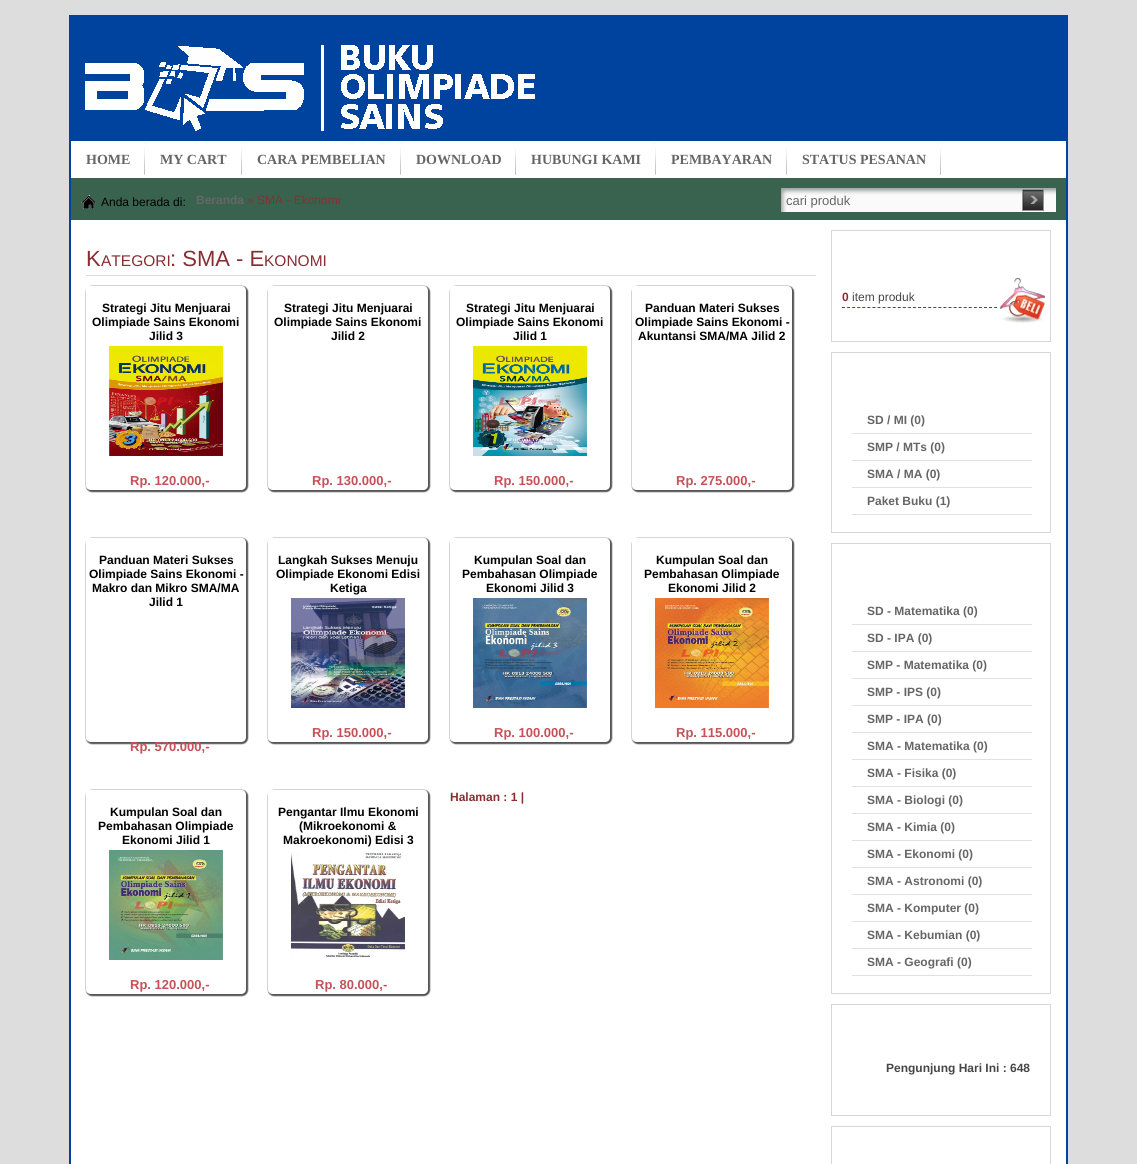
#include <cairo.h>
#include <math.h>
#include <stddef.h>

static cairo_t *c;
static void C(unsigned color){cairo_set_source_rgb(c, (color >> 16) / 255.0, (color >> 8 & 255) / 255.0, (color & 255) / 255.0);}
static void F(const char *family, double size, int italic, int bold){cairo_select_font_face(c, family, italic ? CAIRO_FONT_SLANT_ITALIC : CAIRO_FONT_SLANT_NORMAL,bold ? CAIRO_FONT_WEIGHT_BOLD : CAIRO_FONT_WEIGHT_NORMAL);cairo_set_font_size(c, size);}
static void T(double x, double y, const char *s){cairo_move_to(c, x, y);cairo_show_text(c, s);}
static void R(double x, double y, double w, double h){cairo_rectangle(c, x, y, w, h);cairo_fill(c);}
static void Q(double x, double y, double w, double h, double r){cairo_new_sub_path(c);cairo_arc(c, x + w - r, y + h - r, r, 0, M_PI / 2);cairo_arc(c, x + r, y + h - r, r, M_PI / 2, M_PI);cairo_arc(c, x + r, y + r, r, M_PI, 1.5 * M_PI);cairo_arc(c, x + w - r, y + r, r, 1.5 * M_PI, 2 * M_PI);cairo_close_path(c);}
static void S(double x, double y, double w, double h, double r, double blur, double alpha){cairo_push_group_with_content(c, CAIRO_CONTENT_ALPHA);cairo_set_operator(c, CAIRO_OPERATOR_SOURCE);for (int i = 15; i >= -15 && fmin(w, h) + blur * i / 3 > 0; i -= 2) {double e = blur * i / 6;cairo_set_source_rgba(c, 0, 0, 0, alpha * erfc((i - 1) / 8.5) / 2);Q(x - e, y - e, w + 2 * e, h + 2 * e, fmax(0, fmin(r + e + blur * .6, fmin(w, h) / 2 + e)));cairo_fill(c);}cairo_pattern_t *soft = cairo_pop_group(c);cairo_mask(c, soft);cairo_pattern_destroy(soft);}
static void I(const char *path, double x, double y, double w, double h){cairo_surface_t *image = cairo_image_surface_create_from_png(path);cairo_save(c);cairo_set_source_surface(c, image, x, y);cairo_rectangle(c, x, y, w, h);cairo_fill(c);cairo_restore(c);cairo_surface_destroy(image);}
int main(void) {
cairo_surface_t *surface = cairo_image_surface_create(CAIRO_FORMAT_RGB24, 1137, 1164);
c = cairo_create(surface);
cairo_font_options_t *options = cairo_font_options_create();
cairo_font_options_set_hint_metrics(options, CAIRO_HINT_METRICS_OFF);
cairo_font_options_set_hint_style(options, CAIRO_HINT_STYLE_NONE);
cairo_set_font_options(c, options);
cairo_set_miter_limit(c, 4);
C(0xdddddd);
cairo_paint(c);
C(0x00439e);
R(69,15,999,1149);
I("1.png",85,45,450,86);
C(0xffffff);
R(71,141,995,37);
I("2.png",144,143,1,32);
F("Liberation Serif",14,0,1);
C(0x666666);
T(86,164,"HOME");
I("2.png",241,143,1,32);
T(160,164,"MY CART");
I("2.png",400,143,1,32);
T(257,164,"CARA PEMBELIAN");
I("2.png",515,143,1,32);
T(416,164,"DOWNLOAD");
I("2.png",655,143,1,32);
T(531,164,"HUBUNGI KAMI");
I("2.png",786,143,1,32);
T(671,164,"PEMBAYARAN");
I("2.png",940,143,1,32);
T(802,164,"STATUS PESANAN");
C(0x39634f);
R(71,178,995,42);
I("3.png",81,195,15,14);
F("Liberation Sans",12,0,0);
C(0x000000);
T(101,206,"Anda berada di:");
F("Liberation Sans",12,0,1);
C(0x666666);
T(196,204,"Beranda");
F("Liberation Sans",12,0,0);
C(0x892d33);
T(247,204,"» SMA - Ekonomi");
I("4.png",781,188,275,24);
F("Liberation Sans",13,0,0);
C(0x666666);
T(786,205,"cari produk");
I("5.png",1022,189,22,22);
C(0xffffff);
R(71,220,995,944);
C(0xdddddd);
R(86,275,730,1);
F("Liberation Sans",22,0,0);
C(0x892d33);
T(86,266,"K");
F("Liberation Sans",15.5,0,0);
T(101,266,"ATEGORI");
F("Liberation Sans",22,0,0);
T(170,266,": SMA - E");
F("Liberation Sans",15.5,0,0);
T(264,266,"KONOMI");
cairo_save(c);
cairo_set_fill_rule(c,CAIRO_FILL_RULE_EVEN_ODD);
cairo_new_path(c);
cairo_move_to(c,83,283);
cairo_line_to(c,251,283);
cairo_line_to(c,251,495);
cairo_line_to(c,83,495);
cairo_close_path(c);
cairo_move_to(c,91,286);
cairo_line_to(c,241,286);
cairo_curve_to(c,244,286,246,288,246,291);
cairo_line_to(c,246,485);
cairo_curve_to(c,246,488,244,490,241,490);
cairo_line_to(c,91,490);
cairo_curve_to(c,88,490,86,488,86,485);
cairo_line_to(c,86,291);
cairo_curve_to(c,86,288,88,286,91,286);
cairo_close_path(c);
cairo_clip(c);
C(0x555555);
S(86,286,162,206,6,.5,1);
cairo_restore(c);
F("Liberation Sans",12,0,1);
C(0x000000);
T(102,312,"Strategi Jitu Menjuarai");
T(92,326,"Olimpiade Sains Ekonomi");
T(149,340,"Jilid 3");
I("6.png",109,346,114,110);
F("Liberation Sans",13,0,1);
C(0xc65159);
T(130,485,"Rp. 120.000,-");
cairo_save(c);
cairo_set_fill_rule(c,CAIRO_FILL_RULE_EVEN_ODD);
cairo_new_path(c);
cairo_move_to(c,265,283);
cairo_line_to(c,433,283);
cairo_line_to(c,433,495);
cairo_line_to(c,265,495);
cairo_close_path(c);
cairo_move_to(c,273,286);
cairo_line_to(c,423,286);
cairo_curve_to(c,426,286,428,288,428,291);
cairo_line_to(c,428,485);
cairo_curve_to(c,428,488,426,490,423,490);
cairo_line_to(c,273,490);
cairo_curve_to(c,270,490,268,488,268,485);
cairo_line_to(c,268,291);
cairo_curve_to(c,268,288,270,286,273,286);
cairo_close_path(c);
cairo_clip(c);
C(0x555555);
S(268,286,162,206,6,.5,1);
cairo_restore(c);
F("Liberation Sans",12,0,1);
C(0x000000);
T(284,312,"Strategi Jitu Menjuarai");
T(274,326,"Olimpiade Sains Ekonomi");
T(331,340,"Jilid 2");
F("Liberation Sans",13,0,1);
C(0xc65159);
T(312,485,"Rp. 130.000,-");
cairo_save(c);
cairo_set_fill_rule(c,CAIRO_FILL_RULE_EVEN_ODD);
cairo_new_path(c);
cairo_move_to(c,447,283);
cairo_line_to(c,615,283);
cairo_line_to(c,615,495);
cairo_line_to(c,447,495);
cairo_close_path(c);
cairo_move_to(c,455,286);
cairo_line_to(c,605,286);
cairo_curve_to(c,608,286,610,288,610,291);
cairo_line_to(c,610,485);
cairo_curve_to(c,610,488,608,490,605,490);
cairo_line_to(c,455,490);
cairo_curve_to(c,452,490,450,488,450,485);
cairo_line_to(c,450,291);
cairo_curve_to(c,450,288,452,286,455,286);
cairo_close_path(c);
cairo_clip(c);
C(0x555555);
S(450,286,162,206,6,.5,1);
cairo_restore(c);
F("Liberation Sans",12,0,1);
C(0x000000);
T(466,312,"Strategi Jitu Menjuarai");
T(456,326,"Olimpiade Sains Ekonomi");
T(513,340,"Jilid 1");
I("7.png",473,346,114,110);
F("Liberation Sans",13,0,1);
C(0xc65159);
T(494,485,"Rp. 150.000,-");
cairo_save(c);
cairo_set_fill_rule(c,CAIRO_FILL_RULE_EVEN_ODD);
cairo_new_path(c);
cairo_move_to(c,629,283);
cairo_line_to(c,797,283);
cairo_line_to(c,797,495);
cairo_line_to(c,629,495);
cairo_close_path(c);
cairo_move_to(c,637,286);
cairo_line_to(c,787,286);
cairo_curve_to(c,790,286,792,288,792,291);
cairo_line_to(c,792,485);
cairo_curve_to(c,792,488,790,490,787,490);
cairo_line_to(c,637,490);
cairo_curve_to(c,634,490,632,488,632,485);
cairo_line_to(c,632,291);
cairo_curve_to(c,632,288,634,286,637,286);
cairo_close_path(c);
cairo_clip(c);
C(0x555555);
S(632,286,162,206,6,.5,1);
cairo_restore(c);
F("Liberation Sans",12,0,1);
C(0x000000);
T(645,312,"Panduan Materi Sukses");
T(635,326,"Olimpiade Sains Ekonomi -");
T(638,340,"Akuntansi SMA/MA Jilid 2");
F("Liberation Sans",13,0,1);
C(0xc65159);
T(676,485,"Rp. 275.000,-");
cairo_save(c);
cairo_set_fill_rule(c,CAIRO_FILL_RULE_EVEN_ODD);
cairo_new_path(c);
cairo_move_to(c,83,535);
cairo_line_to(c,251,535);
cairo_line_to(c,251,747);
cairo_line_to(c,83,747);
cairo_close_path(c);
cairo_move_to(c,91,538);
cairo_line_to(c,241,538);
cairo_curve_to(c,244,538,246,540,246,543);
cairo_line_to(c,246,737);
cairo_curve_to(c,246,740,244,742,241,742);
cairo_line_to(c,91,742);
cairo_curve_to(c,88,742,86,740,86,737);
cairo_line_to(c,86,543);
cairo_curve_to(c,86,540,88,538,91,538);
cairo_close_path(c);
cairo_clip(c);
C(0x555555);
S(86,538,162,206,6,.5,1);
cairo_restore(c);
F("Liberation Sans",12,0,1);
C(0x000000);
T(99,564,"Panduan Materi Sukses");
T(89,578,"Olimpiade Sains Ekonomi -");
T(92,592,"Makro dan Mikro SMA/MA");
T(149,606,"Jilid 1");
F("Liberation Sans",13,0,1);
C(0xc65159);
T(130,751,"Rp. 570.000,-");
cairo_save(c);
cairo_set_fill_rule(c,CAIRO_FILL_RULE_EVEN_ODD);
cairo_new_path(c);
cairo_move_to(c,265,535);
cairo_line_to(c,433,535);
cairo_line_to(c,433,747);
cairo_line_to(c,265,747);
cairo_close_path(c);
cairo_move_to(c,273,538);
cairo_line_to(c,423,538);
cairo_curve_to(c,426,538,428,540,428,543);
cairo_line_to(c,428,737);
cairo_curve_to(c,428,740,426,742,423,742);
cairo_line_to(c,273,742);
cairo_curve_to(c,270,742,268,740,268,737);
cairo_line_to(c,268,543);
cairo_curve_to(c,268,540,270,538,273,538);
cairo_close_path(c);
cairo_clip(c);
C(0x555555);
S(268,538,162,206,6,.5,1);
cairo_restore(c);
F("Liberation Sans",12,0,1);
C(0x000000);
T(278,564,"Langkah Sukses Menuju");
T(276,578,"Olimpiade Ekonomi Edisi");
T(330,592,"Ketiga");
I("8.png",291,598,114,110);
F("Liberation Sans",13,0,1);
C(0xc65159);
T(312,737,"Rp. 150.000,-");
cairo_save(c);
cairo_set_fill_rule(c,CAIRO_FILL_RULE_EVEN_ODD);
cairo_new_path(c);
cairo_move_to(c,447,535);
cairo_line_to(c,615,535);
cairo_line_to(c,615,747);
cairo_line_to(c,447,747);
cairo_close_path(c);
cairo_move_to(c,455,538);
cairo_line_to(c,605,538);
cairo_curve_to(c,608,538,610,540,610,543);
cairo_line_to(c,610,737);
cairo_curve_to(c,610,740,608,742,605,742);
cairo_line_to(c,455,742);
cairo_curve_to(c,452,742,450,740,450,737);
cairo_line_to(c,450,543);
cairo_curve_to(c,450,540,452,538,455,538);
cairo_close_path(c);
cairo_clip(c);
C(0x555555);
S(450,538,162,206,6,.5,1);
cairo_restore(c);
F("Liberation Sans",12,0,1);
C(0x000000);
T(474,564,"Kumpulan Soal dan");
T(462,578,"Pembahasan Olimpiade");
T(486,592,"Ekonomi Jilid 3");
I("9.png",473,598,114,110);
F("Liberation Sans",13,0,1);
C(0xc65159);
T(494,737,"Rp. 100.000,-");
cairo_save(c);
cairo_set_fill_rule(c,CAIRO_FILL_RULE_EVEN_ODD);
cairo_new_path(c);
cairo_move_to(c,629,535);
cairo_line_to(c,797,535);
cairo_line_to(c,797,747);
cairo_line_to(c,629,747);
cairo_close_path(c);
cairo_move_to(c,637,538);
cairo_line_to(c,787,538);
cairo_curve_to(c,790,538,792,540,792,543);
cairo_line_to(c,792,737);
cairo_curve_to(c,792,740,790,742,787,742);
cairo_line_to(c,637,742);
cairo_curve_to(c,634,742,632,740,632,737);
cairo_line_to(c,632,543);
cairo_curve_to(c,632,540,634,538,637,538);
cairo_close_path(c);
cairo_clip(c);
C(0x555555);
S(632,538,162,206,6,.5,1);
cairo_restore(c);
F("Liberation Sans",12,0,1);
C(0x000000);
T(656,564,"Kumpulan Soal dan");
T(644,578,"Pembahasan Olimpiade");
T(668,592,"Ekonomi Jilid 2");
I("10.png",655,598,114,110);
F("Liberation Sans",13,0,1);
C(0xc65159);
T(676,737,"Rp. 115.000,-");
F("Liberation Sans",12,0,1);
C(0x892d33);
T(450,801,"Halaman : 1 |");
cairo_save(c);
cairo_set_fill_rule(c,CAIRO_FILL_RULE_EVEN_ODD);
cairo_new_path(c);
cairo_move_to(c,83,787);
cairo_line_to(c,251,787);
cairo_line_to(c,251,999);
cairo_line_to(c,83,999);
cairo_close_path(c);
cairo_move_to(c,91,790);
cairo_line_to(c,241,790);
cairo_curve_to(c,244,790,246,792,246,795);
cairo_line_to(c,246,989);
cairo_curve_to(c,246,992,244,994,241,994);
cairo_line_to(c,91,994);
cairo_curve_to(c,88,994,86,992,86,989);
cairo_line_to(c,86,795);
cairo_curve_to(c,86,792,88,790,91,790);
cairo_close_path(c);
cairo_clip(c);
C(0x555555);
S(86,790,162,206,6,.5,1);
cairo_restore(c);
C(0x000000);
T(110,816,"Kumpulan Soal dan");
T(98,830,"Pembahasan Olimpiade");
T(122,844,"Ekonomi Jilid 1");
I("11.png",109,850,114,110);
F("Liberation Sans",13,0,1);
C(0xc65159);
T(130,989,"Rp. 120.000,-");
cairo_save(c);
cairo_set_fill_rule(c,CAIRO_FILL_RULE_EVEN_ODD);
cairo_new_path(c);
cairo_move_to(c,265,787);
cairo_line_to(c,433,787);
cairo_line_to(c,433,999);
cairo_line_to(c,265,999);
cairo_close_path(c);
cairo_move_to(c,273,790);
cairo_line_to(c,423,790);
cairo_curve_to(c,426,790,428,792,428,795);
cairo_line_to(c,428,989);
cairo_curve_to(c,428,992,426,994,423,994);
cairo_line_to(c,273,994);
cairo_curve_to(c,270,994,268,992,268,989);
cairo_line_to(c,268,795);
cairo_curve_to(c,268,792,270,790,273,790);
cairo_close_path(c);
cairo_clip(c);
C(0x555555);
S(268,790,162,206,6,.5,1);
cairo_restore(c);
F("Liberation Sans",12,0,1);
C(0x000000);
T(278,816,"Pengantar Ilmu Ekonomi");
T(299,830,"(Mikroekonomi &");
T(283,844,"Makroekonomi) Edisi 3");
I("12.png",291,852,114,107);
F("Liberation Sans",13,0,1);
C(0xc65159);
T(315,989,"Rp. 80.000,-");
cairo_rectangle(c,831.5,230.5,219,111);
C(0xd7d7d7);
cairo_set_line_width(c,1);
cairo_stroke(c);
F("Liberation Sans",12,0,1);
C(0x892d33);
T(842,301,"0");
F("Liberation Sans",12,0,0);
C(0x464646);
T(852,301,"item produk");
cairo_new_path(c);
cairo_move_to(c,842,307.5);
cairo_line_to(c,997,307.5);
C(0x892d33);
cairo_set_dash(c,(double[]){3,2.07},2,0);
cairo_stroke(c);
I("13.png",1000,278,45,45);
cairo_rectangle(c,831.5,352.5,219,180);
C(0xd7d7d7);
cairo_set_dash(c,NULL,0,0);
cairo_stroke(c);
C(0xe1e1e1);
R(852,433,180,1);
F("Liberation Sans",12,0,1);
C(0x666666);
T(867,424,"SD / MI (0)");
C(0xe1e1e1);
R(852,460,180,1);
C(0x666666);
T(867,451,"SMP / MTs (0)");
C(0xe1e1e1);
R(852,487,180,1);
C(0x666666);
T(867,478,"SMA / MA (0)");
C(0xe1e1e1);
R(852,514,180,1);
C(0x666666);
T(867,505,"Paket Buku (1)");
cairo_rectangle(c,831.5,543.5,219,450);
C(0xd7d7d7);
cairo_stroke(c);
C(0xe1e1e1);
R(852,624,180,1);
C(0x666666);
T(867,615,"SD - Matematika (0)");
C(0xe1e1e1);
R(852,651,180,1);
C(0x666666);
T(867,642,"SD - IPA (0)");
C(0xe1e1e1);
R(852,678,180,1);
C(0x666666);
T(867,669,"SMP - Matematika (0)");
C(0xe1e1e1);
R(852,705,180,1);
C(0x666666);
T(867,696,"SMP - IPS (0)");
C(0xe1e1e1);
R(852,732,180,1);
C(0x666666);
T(867,723,"SMP - IPA (0)");
C(0xe1e1e1);
R(852,759,180,1);
C(0x666666);
T(867,750,"SMA - Matematika (0)");
C(0xe1e1e1);
R(852,786,180,1);
C(0x666666);
T(867,777,"SMA - Fisika (0)");
C(0xe1e1e1);
R(852,813,180,1);
C(0x666666);
T(867,804,"SMA - Biologi (0)");
C(0xe1e1e1);
R(852,840,180,1);
C(0x666666);
T(867,831,"SMA - Kimia (0)");
C(0xe1e1e1);
R(852,867,180,1);
C(0x666666);
T(867,858,"SMA - Ekonomi (0)");
C(0xe1e1e1);
R(852,894,180,1);
C(0x666666);
T(867,885,"SMA - Astronomi (0)");
C(0xe1e1e1);
R(852,921,180,1);
C(0x666666);
T(867,912,"SMA - Komputer (0)");
C(0xe1e1e1);
R(852,948,180,1);
C(0x666666);
T(867,939,"SMA - Kebumian (0)");
C(0xe1e1e1);
R(852,975,180,1);
C(0x666666);
T(867,966,"SMA - Geografi (0)");
cairo_rectangle(c,831.5,1004.5,219,111);
C(0xd7d7d7);
cairo_stroke(c);
C(0x464646);
T(886,1072,"Pengunjung Hari Ini : 648");
cairo_rectangle(c,831.5,1126.5,219,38);
C(0xd7d7d7);
cairo_stroke(c);
cairo_surface_write_to_png(surface, "o.png");
cairo_font_options_destroy(options);
cairo_destroy(c);
cairo_surface_destroy(surface);
return 0;
}
